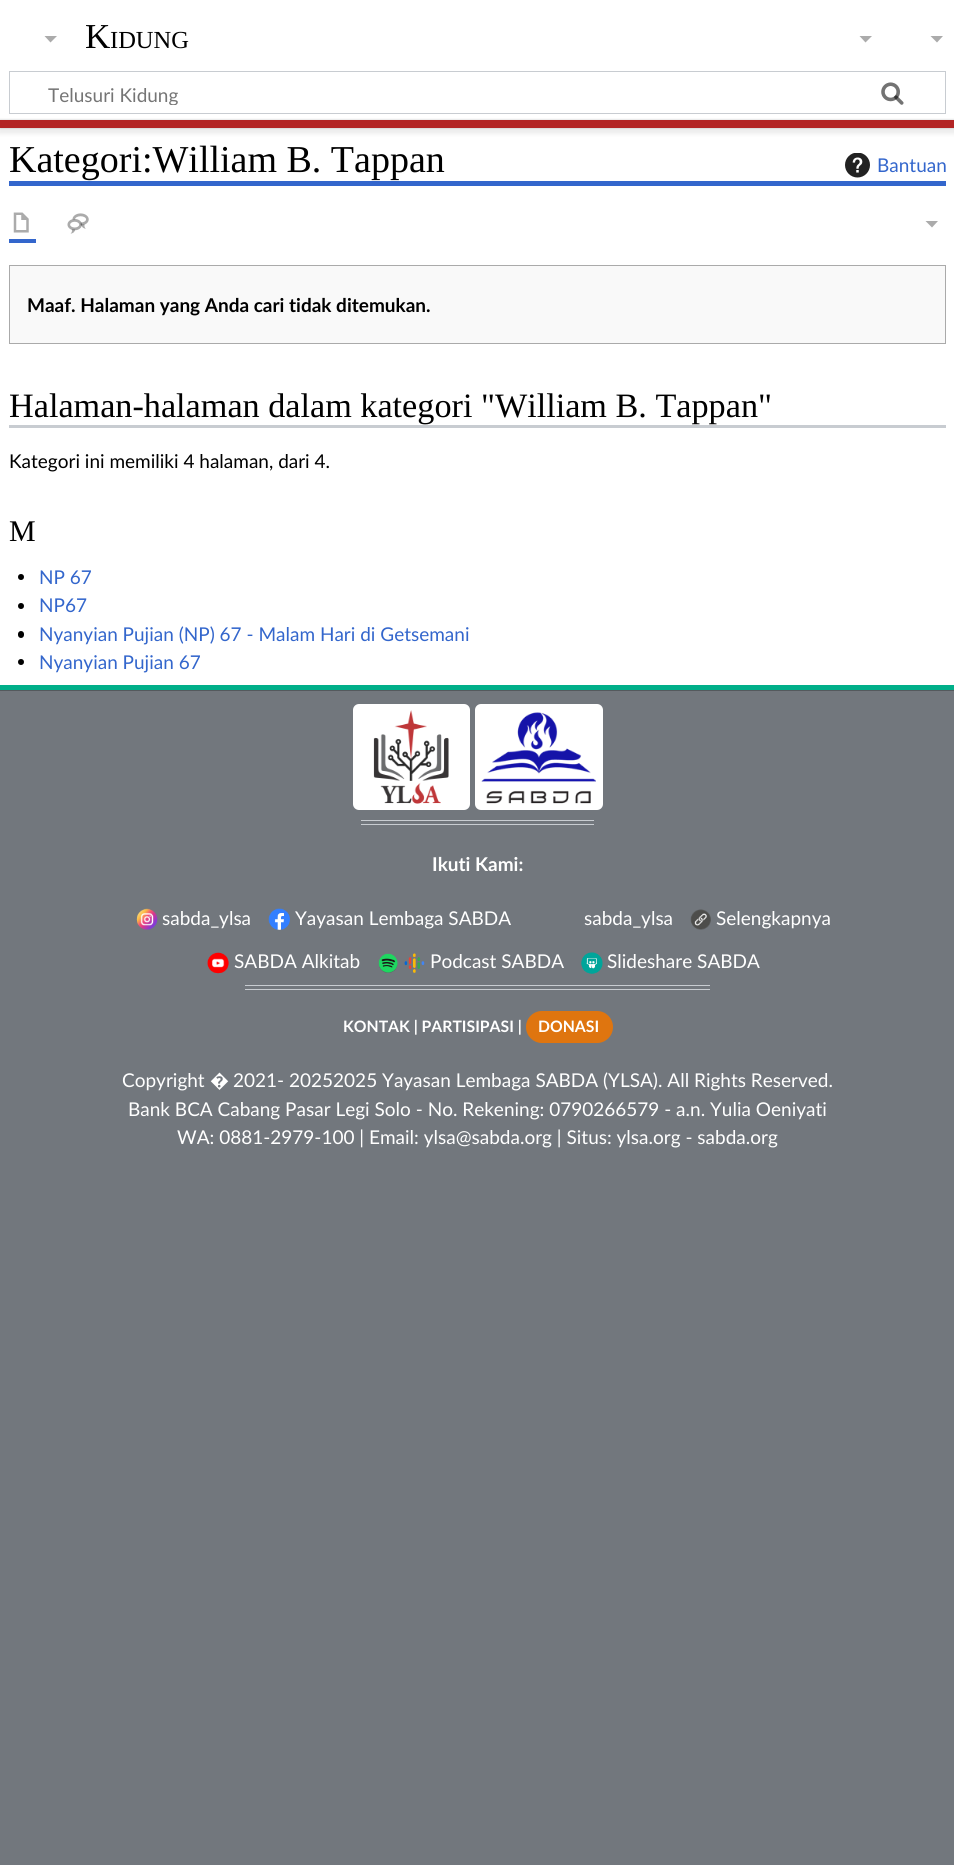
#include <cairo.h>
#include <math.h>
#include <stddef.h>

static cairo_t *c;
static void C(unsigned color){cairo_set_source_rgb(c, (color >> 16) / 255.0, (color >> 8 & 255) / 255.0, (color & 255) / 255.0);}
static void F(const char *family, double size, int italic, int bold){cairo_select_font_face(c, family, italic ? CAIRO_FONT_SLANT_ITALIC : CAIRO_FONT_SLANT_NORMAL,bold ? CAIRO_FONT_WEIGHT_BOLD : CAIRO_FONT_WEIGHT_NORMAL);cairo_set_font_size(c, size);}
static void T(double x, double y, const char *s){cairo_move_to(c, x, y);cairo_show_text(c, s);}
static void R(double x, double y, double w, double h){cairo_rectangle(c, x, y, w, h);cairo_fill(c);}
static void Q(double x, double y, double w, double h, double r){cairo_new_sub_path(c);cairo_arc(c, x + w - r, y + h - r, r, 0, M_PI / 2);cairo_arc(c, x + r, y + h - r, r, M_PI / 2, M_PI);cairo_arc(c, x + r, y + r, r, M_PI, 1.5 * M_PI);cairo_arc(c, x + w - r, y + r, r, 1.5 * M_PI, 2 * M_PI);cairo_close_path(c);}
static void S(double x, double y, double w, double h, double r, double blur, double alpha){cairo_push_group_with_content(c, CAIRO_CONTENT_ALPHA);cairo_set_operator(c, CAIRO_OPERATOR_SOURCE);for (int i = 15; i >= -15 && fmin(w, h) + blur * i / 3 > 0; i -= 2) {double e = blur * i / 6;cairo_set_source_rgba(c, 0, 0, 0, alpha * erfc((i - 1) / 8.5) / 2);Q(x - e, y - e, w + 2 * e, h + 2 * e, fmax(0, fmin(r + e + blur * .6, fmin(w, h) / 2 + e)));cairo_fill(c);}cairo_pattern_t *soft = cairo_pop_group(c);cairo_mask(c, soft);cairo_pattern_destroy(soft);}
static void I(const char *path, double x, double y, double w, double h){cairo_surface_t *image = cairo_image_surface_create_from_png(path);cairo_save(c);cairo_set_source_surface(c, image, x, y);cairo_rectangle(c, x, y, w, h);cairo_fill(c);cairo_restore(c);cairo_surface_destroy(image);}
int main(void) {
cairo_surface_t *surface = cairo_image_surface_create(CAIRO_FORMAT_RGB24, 954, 1865);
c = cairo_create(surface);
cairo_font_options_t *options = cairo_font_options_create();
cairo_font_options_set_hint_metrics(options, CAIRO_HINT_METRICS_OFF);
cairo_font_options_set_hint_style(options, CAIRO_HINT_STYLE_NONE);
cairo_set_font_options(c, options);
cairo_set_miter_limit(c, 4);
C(0x72777d);
cairo_paint(c);
C(0xffffff);
R(0,0,954,120);
F("Liberation Serif",35,0,0);
C(0x000000);
T(85,48,"K");
F("Liberation Serif",24.5,0,0);
T(110,48,"IDUNG");
C(0xababab);
cairo_new_path(c);
cairo_move_to(c,943,36);
cairo_line_to(c,937,42.5);
cairo_line_to(c,930.5,36);
cairo_close_path(c);
cairo_fill(c);
cairo_rectangle(c,9.5,71.5,936,42);
C(0xc8ccd1);
cairo_set_line_width(c,1);
cairo_stroke(c);
I("1.png",881,82,23,23);
cairo_save(c);
cairo_rectangle(c,48,83,807,22);
cairo_clip(c);
F("Lato",19,0,0);
C(0x757575);
T(48,102,"Telusuri Kidung");
cairo_restore(c);
I("2.png",881,82,23,23);
C(0xffffff);
R(0,128,954,557);
C(0x000000);
S(0,120,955,8,0,1,.2);
S(-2,121,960,13,0,2,.07);
C(0xb32424);
R(0,120,954,8);
C(0x00af89);
R(0,685,954,5);
C(0xababab);
cairo_new_path(c);
cairo_move_to(c,57,36);
cairo_line_to(c,50.5,42.5);
cairo_line_to(c,44.5,36);
cairo_close_path(c);
cairo_fill(c);
cairo_new_path(c);
cairo_move_to(c,872,36);
cairo_line_to(c,865.5,42.5);
cairo_line_to(c,859.5,36);
cairo_close_path(c);
cairo_fill(c);
C(0x3366cc);
R(9,181,937,5);
F("Liberation Serif",38,0,0);
C(0x000000);
T(9,172,"Kategori:William B. Tappan");
I("3.png",845,153,25,25);
F("Lato",19,0,0);
C(0x3366cc);
T(877,172,"Bantuan");
R(9,239,27,4);
I("4.png",13,212,16,21);
I("5.png",67,213,22,21);
C(0xababab);
cairo_new_path(c);
cairo_move_to(c,938,221);
cairo_line_to(c,932,227.5);
cairo_line_to(c,925.5,221);
cairo_close_path(c);
cairo_fill(c);
C(0xf9f9f9);
cairo_rectangle(c,9.5,265.5,936,78);
cairo_fill_preserve(c);
C(0xaaaaaa);
cairo_stroke(c);
F("Lato",19,0,1);
C(0x000000);
T(27,312,"Maaf. Halaman yang Anda cari tidak ditemukan.");
C(0xc8ccd1);
R(9,425,937,3);
F("Liberation Serif",34.2,0,0);
C(0x000000);
T(9,417,"Halaman-halaman dalam kategori \"William B. Tappan\"");
F("Lato",19,0,0);
T(9,468,"Kategori ini memiliki 4 halaman, dari 4.");
F("Liberation Serif",30,0,0);
T(9,541,"M");
cairo_new_path(c);
cairo_arc(c,21,577,3,0,2 * M_PI);
cairo_fill(c);
F("Lato",19,0,0);
C(0x3366cc);
T(39,584,"NP 67");
C(0x000000);
cairo_new_path(c);
cairo_arc(c,21,606,3,0,2 * M_PI);
cairo_fill(c);
C(0x3366cc);
T(39,612,"NP67");
C(0x000000);
Q(18,631,6,7,3);
cairo_fill(c);
C(0x3366cc);
T(39,641,"Nyanyian Pujian (NP) 67 - Malam Hari di Getsemani");
C(0x000000);
cairo_new_path(c);
cairo_arc(c,21,662,3,0,2 * M_PI);
cairo_fill(c);
C(0x3366cc);
T(39,669,"Nyanyian Pujian 67");
C(0x54595d);
R(0,690,954,1);
C(0xffffff);
Q(353,704,117,106,6);
cairo_fill(c);
Q(475,704,128,106,6);
cairo_fill(c);
I("6.png",373,710,76,94);
I("7.png",481,712,115,92);
C(0xc8ccd1);
R(361,820,233,1);
R(361,824,233,1);
F("Lato",19,0,1);
C(0xffffff);
T(432,871,"Ikuti Kami:");
I("8.png",136,908,22,22);
F("Lato",19,0,0);
T(162,925,"sabda_ylsa");
I("9.png",268,908,22,22);
T(295,925,"Yayasan Lembaga SABDA");
T(584,925,"sabda_ylsa");
I("10.png",690,909,21,21);
T(716,925,"Selengkapnya");
I("11.png",207,952,22,22);
T(234,968,"SABDA Alkitab");
I("12.png",378,953,20,20);
I("13.png",404,953,21,20);
T(430,968,"Podcast SABDA");
I("14.png",581,952,22,22);
T(607,968,"Slideshare SABDA");
C(0xc8ccd1);
R(245,985,465,1);
R(245,989,465,1);
F("Lato",15.75,0,1);
C(0xffffff);
T(343,1032,"KONTAK | PARTISIPASI |");
C(0xdf750f);
Q(526,1011,87,32,16);
cairo_fill(c);
C(0xffffff);
T(538,1032,"DONASI");
F("Lato",19,0,0);
T(122,1087,"Copyright");
F("Noto Sans",19,0,0);
T(210,1087,"�");
F("Lato",19,0,0);
T(233,1087,"2021- 20252025 Yayasan Lembaga SABDA (YLSA). All Rights Reserved.");
T(128,1116,"Bank BCA Cabang Pasar Legi Solo - No. Rekening: 0790266579 - a.n. Yulia Oeniyati");
T(177,1144,"WA: 0881-2979-100 | Email: ylsa@sabda.org | Situs: ylsa.org - sabda.org");
cairo_surface_write_to_png(surface, "o.png");
cairo_font_options_destroy(options);
cairo_destroy(c);
cairo_surface_destroy(surface);
return 0;
}
